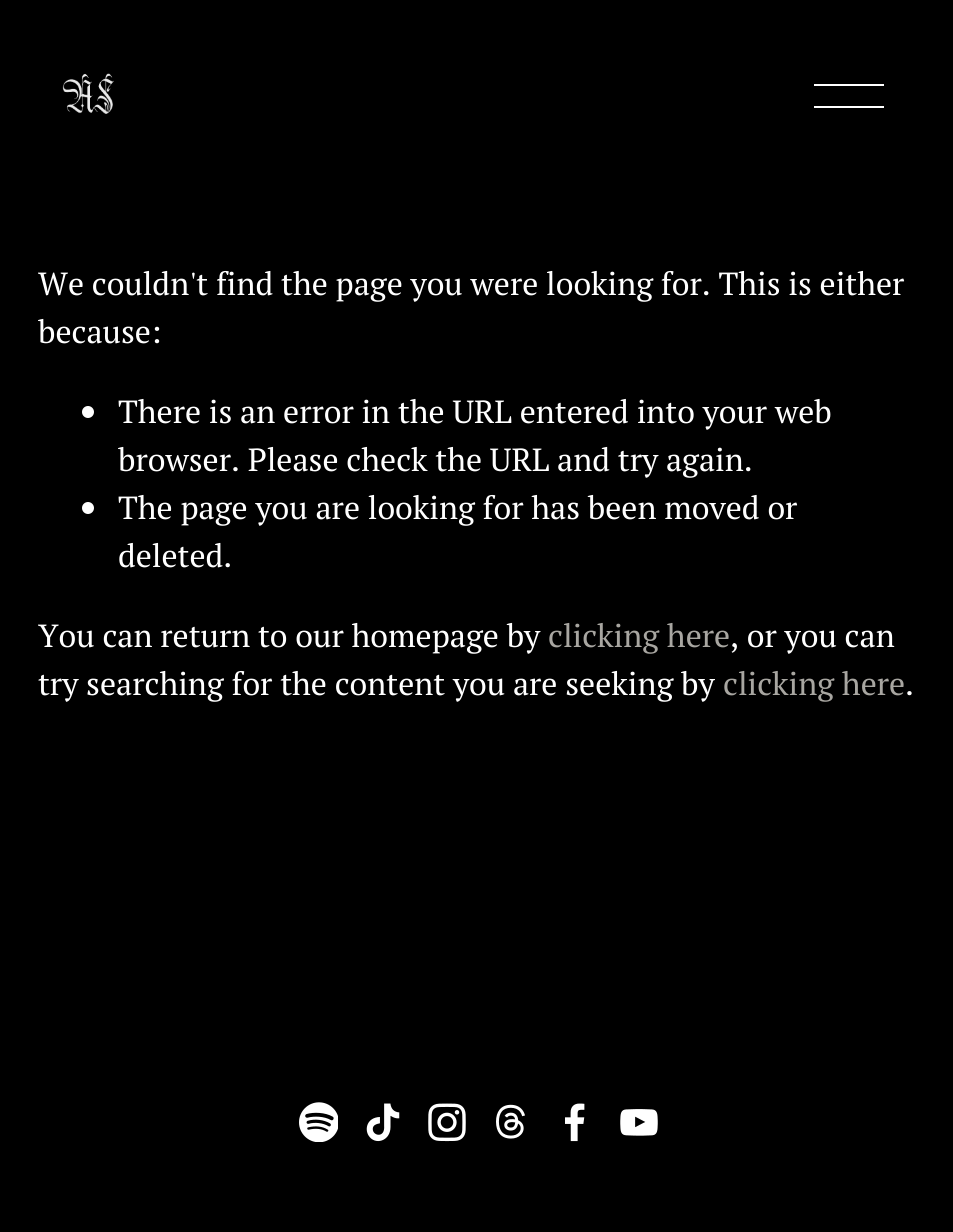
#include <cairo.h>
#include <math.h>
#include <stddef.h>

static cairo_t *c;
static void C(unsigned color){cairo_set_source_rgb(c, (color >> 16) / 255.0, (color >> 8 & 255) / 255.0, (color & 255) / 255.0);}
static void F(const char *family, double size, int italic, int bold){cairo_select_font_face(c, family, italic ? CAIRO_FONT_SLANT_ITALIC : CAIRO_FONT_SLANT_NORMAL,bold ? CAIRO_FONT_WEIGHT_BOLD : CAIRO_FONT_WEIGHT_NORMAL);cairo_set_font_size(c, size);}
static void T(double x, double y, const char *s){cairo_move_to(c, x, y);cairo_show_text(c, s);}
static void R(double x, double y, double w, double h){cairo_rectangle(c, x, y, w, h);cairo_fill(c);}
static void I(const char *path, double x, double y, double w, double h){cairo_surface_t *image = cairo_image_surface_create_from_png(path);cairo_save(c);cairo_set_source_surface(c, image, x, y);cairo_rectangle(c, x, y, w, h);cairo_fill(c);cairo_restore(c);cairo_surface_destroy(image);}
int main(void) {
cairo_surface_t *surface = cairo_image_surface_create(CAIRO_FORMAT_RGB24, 953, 1232);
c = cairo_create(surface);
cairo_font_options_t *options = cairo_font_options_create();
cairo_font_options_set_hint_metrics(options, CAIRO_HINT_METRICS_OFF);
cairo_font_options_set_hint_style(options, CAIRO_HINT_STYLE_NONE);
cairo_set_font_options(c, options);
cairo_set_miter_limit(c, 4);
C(0x000000);
cairo_paint(c);
I("1.png",62,73,52,41);
C(0xffffff);
R(814,84,70,2);
R(814,106,70,2);
F("PT Serif",32,0,0);
T(38,295,"We couldn't find the page you were looking for. This is either");
T(38,343,"because:");
cairo_new_path(c);
cairo_arc(c,88,412,6,0,2 * M_PI);
cairo_fill(c);
T(118,423,"There is an error in the URL entered into your web");
T(118,471,"browser. Please check the URL and try again.");
cairo_new_path(c);
cairo_arc(c,88,508,6,0,2 * M_PI);
cairo_fill(c);
T(118,519,"The page you are looking for has been moved or");
T(118,567,"deleted.");
T(38,647,"You can return to our homepage by");
C(0xa8a6a1);
T(548,647,"clicking here");
C(0xffffff);
T(730,647,", or you can");
T(38,695,"try searching for the content you are seeking by");
C(0xa8a6a1);
T(723,695,"clicking here");
C(0xffffff);
T(905,695,".");
I("2.png",299,1102,39,40);
I("3.png",366,1103,34,39);
I("4.png",428,1103,38,39);
I("5.png",496,1104,29,35);
I("6.png",565,1103,20,39);
I("7.png",620,1109,38,27);
cairo_surface_write_to_png(surface, "o.png");
cairo_font_options_destroy(options);
cairo_destroy(c);
cairo_surface_destroy(surface);
return 0;
}
